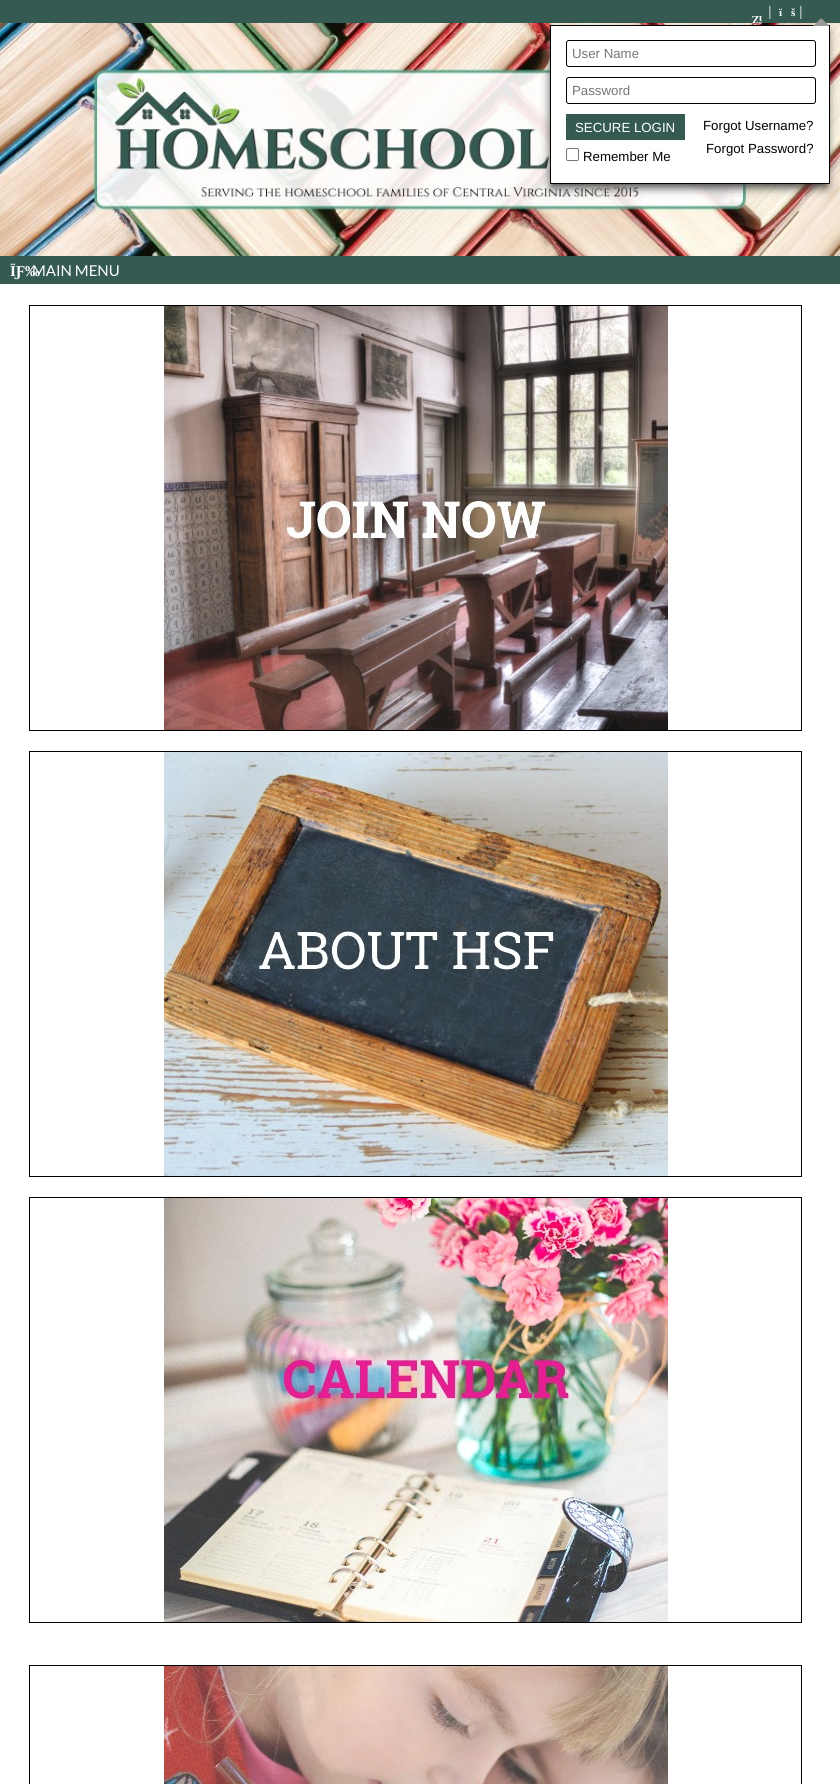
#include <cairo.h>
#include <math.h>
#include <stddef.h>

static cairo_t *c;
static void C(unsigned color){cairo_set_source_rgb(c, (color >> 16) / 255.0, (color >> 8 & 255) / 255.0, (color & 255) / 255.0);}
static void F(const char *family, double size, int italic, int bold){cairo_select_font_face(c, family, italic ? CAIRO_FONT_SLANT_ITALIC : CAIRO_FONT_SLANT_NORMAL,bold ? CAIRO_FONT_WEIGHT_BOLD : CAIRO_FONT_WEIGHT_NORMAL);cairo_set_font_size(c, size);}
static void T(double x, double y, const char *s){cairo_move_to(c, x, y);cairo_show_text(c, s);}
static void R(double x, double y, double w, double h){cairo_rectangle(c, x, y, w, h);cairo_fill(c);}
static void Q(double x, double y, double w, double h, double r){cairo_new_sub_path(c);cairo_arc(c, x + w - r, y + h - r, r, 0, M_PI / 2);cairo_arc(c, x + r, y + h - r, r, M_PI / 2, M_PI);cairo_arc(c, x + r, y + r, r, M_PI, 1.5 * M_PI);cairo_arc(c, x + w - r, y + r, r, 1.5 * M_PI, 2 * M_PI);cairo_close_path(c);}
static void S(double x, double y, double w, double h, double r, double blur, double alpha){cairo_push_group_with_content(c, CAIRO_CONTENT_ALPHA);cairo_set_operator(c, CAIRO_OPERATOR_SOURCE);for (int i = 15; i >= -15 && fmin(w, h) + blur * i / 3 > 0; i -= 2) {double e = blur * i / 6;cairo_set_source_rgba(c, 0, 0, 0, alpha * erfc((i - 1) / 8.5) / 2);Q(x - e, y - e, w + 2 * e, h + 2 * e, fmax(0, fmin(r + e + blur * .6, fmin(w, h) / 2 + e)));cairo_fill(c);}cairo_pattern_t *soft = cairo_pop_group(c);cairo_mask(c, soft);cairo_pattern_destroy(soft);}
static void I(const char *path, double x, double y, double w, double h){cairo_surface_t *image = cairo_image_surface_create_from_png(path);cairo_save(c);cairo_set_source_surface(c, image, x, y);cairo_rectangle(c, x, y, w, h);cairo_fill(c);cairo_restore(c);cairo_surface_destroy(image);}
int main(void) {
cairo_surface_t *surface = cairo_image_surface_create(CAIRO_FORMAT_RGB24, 840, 1784);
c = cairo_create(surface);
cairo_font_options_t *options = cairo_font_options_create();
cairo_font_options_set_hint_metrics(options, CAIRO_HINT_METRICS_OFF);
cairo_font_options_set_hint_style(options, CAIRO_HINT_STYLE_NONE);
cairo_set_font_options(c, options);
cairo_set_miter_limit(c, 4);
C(0xffffff);
cairo_paint(c);
C(0x355a52);
R(0,0,840,23);
F("Liberation Sans",14,0,0);
C(0xc2cecb);
T(768,16,"|");
F("Liberation Serif",11,0,1);
C(0xffffff);
T(779,16,"ï");
T(791,16,"š");
F("Liberation Sans",14,0,0);
C(0xc2cecb);
T(799,16,"|");
I("2.png",0,23,840,233);
F("Liberation Serif",11,0,1);
C(0xffffff);
cairo_save(c);
cairo_translate(c,762,16);
cairo_rotate(c,180 * M_PI / 180);
T(0,0,"îŽ¯");
cairo_restore(c);
C(0x333333);
S(551,32,276,155,0,5,1);
C(0xffffff);
cairo_rectangle(c,550.5,25.5,279,158);
cairo_fill_preserve(c);
C(0x000000);
cairo_set_line_width(c,1);
cairo_stroke(c);
I("1.png",813,18,16,8);
Q(566.5,40.5,249,26,2.5);
cairo_stroke(c);
F("Liberation Sans",13.25,0,0);
C(0x757575);
T(572,58,"User Name");
Q(566.5,77.5,249,26,2.5);
C(0x000000);
cairo_stroke(c);
C(0x757575);
T(572,95,"Password");
C(0x355a52);
R(566,114,119,26);
C(0xffffff);
T(575,132,"SECURE LOGIN");
Q(566.5,148.5,12,12,1.5);
C(0x767676);
cairo_stroke(c);
C(0x000000);
T(583,161,"Remember Me");
T(703,130,"Forgot Username?");
T(706,153,"Forgot Password?");
C(0x355a52);
R(0,256,840,28);
F("Liberation Serif",15,0,1);
C(0xffffff);
T(10,276,"ÏƑ‰");
F("Lato",15,0,0);
T(32,276,"MAIN MENU");
cairo_rectangle(c,29.5,305.5,772,425);
C(0x000000);
cairo_stroke(c);
I("3.png",164,306,504,424);
cairo_rectangle(c,29.5,751.5,772,425);
cairo_stroke(c);
I("4.png",164,752,504,424);
cairo_rectangle(c,29.5,1197.5,772,425);
cairo_stroke(c);
I("5.png",164,1198,504,424);
cairo_rectangle(c,29.5,1665.5,772,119);
cairo_stroke(c);
I("6.png",164,1666,504,118);
cairo_surface_write_to_png(surface, "o.png");
cairo_font_options_destroy(options);
cairo_destroy(c);
cairo_surface_destroy(surface);
return 0;
}
